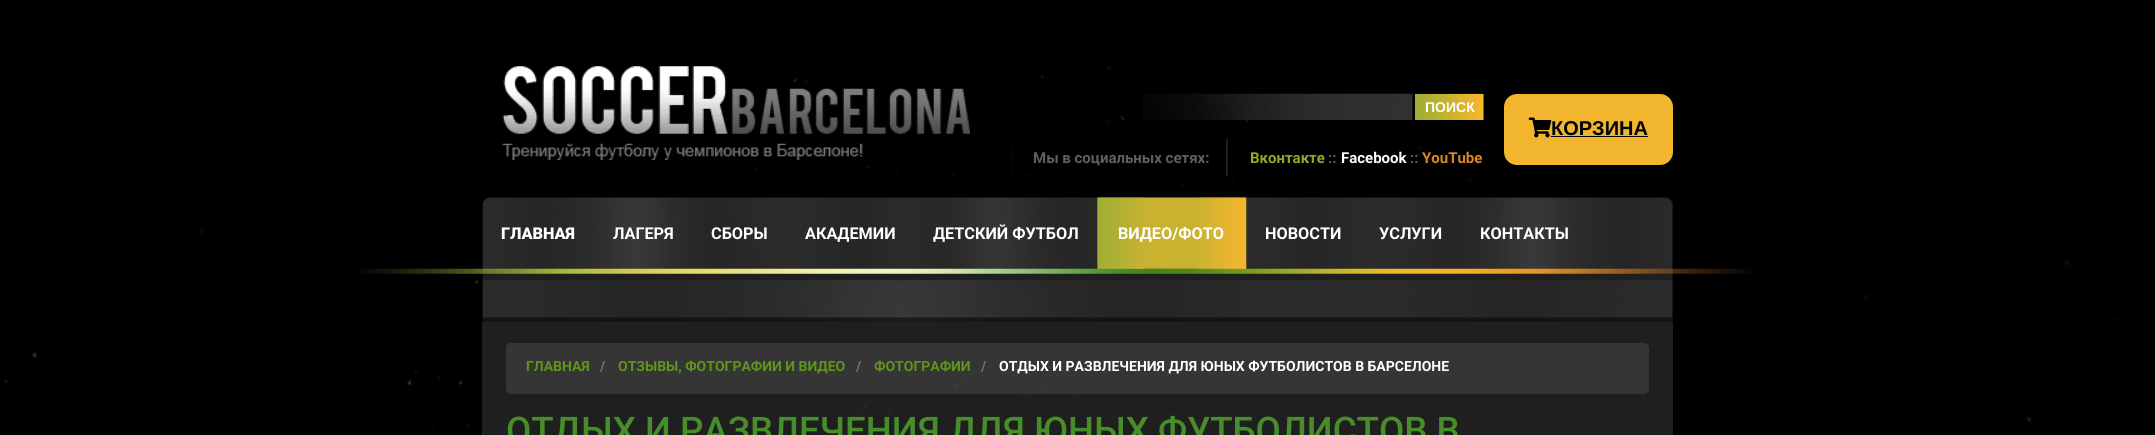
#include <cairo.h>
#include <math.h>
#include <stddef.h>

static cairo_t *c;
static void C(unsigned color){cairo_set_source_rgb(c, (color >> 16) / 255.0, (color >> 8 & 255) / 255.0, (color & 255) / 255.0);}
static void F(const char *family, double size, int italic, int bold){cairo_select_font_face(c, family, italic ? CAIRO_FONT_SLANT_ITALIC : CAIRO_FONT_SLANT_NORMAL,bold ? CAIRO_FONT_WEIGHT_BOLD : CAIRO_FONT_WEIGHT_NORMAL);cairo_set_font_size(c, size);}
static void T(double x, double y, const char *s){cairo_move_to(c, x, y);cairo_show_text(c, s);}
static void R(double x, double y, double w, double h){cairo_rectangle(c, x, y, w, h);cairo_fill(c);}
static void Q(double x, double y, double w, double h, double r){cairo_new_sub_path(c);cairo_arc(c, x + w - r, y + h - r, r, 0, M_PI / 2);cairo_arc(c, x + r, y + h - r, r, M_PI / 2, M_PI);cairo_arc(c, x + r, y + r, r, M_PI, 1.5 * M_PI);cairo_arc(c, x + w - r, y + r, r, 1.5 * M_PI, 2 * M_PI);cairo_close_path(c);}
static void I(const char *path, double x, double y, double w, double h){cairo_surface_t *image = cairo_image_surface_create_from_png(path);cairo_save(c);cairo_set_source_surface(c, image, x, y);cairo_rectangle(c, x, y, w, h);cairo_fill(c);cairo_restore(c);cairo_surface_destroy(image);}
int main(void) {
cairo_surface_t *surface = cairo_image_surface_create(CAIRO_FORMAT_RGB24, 2155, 435);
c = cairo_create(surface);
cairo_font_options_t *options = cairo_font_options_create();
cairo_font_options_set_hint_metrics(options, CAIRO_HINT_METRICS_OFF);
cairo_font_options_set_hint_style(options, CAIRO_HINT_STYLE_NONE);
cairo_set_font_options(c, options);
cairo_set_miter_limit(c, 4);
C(0xffffff);
cairo_paint(c);
I("1.png",0,0,2155,435);
I("2.png",358,197,1394,126);
I("3.png",502,66,468,94);
I("4.png",1142,93,271,27);
I("5.png",1415,93,69,27);
F("Liberation Sans",14,0,1);
C(0xffffff);
T(1425,112,"ПОИСК");
C(0xf2b62e);
Q(1504,94,169,71,13);
cairo_fill(c);
I("6.png",1528,117,24,21);
F("Liberation Sans",20,0,1);
C(0x000000);
T(1551,135,"КОРЗИНА");
R(1551,136,97,1);
cairo_set_source_rgba(c,0.169,0.169,0.169,0.18);
R(1011,139,1,37);
F("Roboto",15,0,1);
C(0x605f5f);
T(1033,163,"Мы в социальных сетях:");
I("7.png",1226,139,2,37);
C(0x97a726);
T(1250,163,"Вконтакте");
C(0x605f5f);
T(1328,163,"::");
C(0xffffff);
T(1341,163,"Facebook");
C(0x605f5f);
T(1410,163,"::");
C(0xdb8622);
T(1422,163,"YouTube");
F("Roboto Black",16.25,0,0);
C(0xffffff);
T(501,239,"ГЛАВНАЯ");
F("Roboto",16.25,0,1);
T(613,239,"ЛАГЕРЯ");
T(711,239,"СБОРЫ");
T(805,239,"АКАДЕМИИ");
T(933,239,"ДЕТСКИЙ ФУТБОЛ");
I("8.png",1097,197,150,72);
I("9.png",1097,197,47,72);
I("10.png",1198,197,49,72);
T(1118,239,"ВИДЕО/ФОТО");
T(1265,239,"НОВОСТИ");
T(1379,239,"УСЛУГИ");
T(1480,239,"КОНТАКТЫ");
cairo_set_source_rgba(c,0.129,0.129,0.129,0.95);
R(482,322,1191,113);
cairo_set_source_rgba(c,1,1,1,0.1);
Q(506,343,1143,51,5);
cairo_fill(c);
F("Roboto",14,0,1);
C(0x5f951c);
T(526,371,"ГЛАВНАЯ");
C(0x6c757d);
T(600,371,"/");
C(0x5f951c);
T(618,371,"ОТЗЫВЫ, ФОТОГРАФИИ И ВИДЕО");
C(0x6c757d);
T(856,371,"/");
C(0x5f951c);
T(874,371,"ФОТОГРАФИИ");
C(0x6c757d);
T(981,371,"/");
C(0xffffff);
T(999,371,"ОТДЫХ И РАЗВЛЕЧЕНИЯ ДЛЯ ЮНЫХ ФУТБОЛИСТОВ В БАРСЕЛОНЕ");
F("Roboto Medium",36.65,0,0);
C(0x478d2a);
T(506,443,"ОТДЫХ И РАЗВЛЕЧЕНИЯ ДЛЯ ЮНЫХ ФУТБОЛИСТОВ В");
cairo_surface_write_to_png(surface, "o.png");
cairo_font_options_destroy(options);
cairo_destroy(c);
cairo_surface_destroy(surface);
return 0;
}
